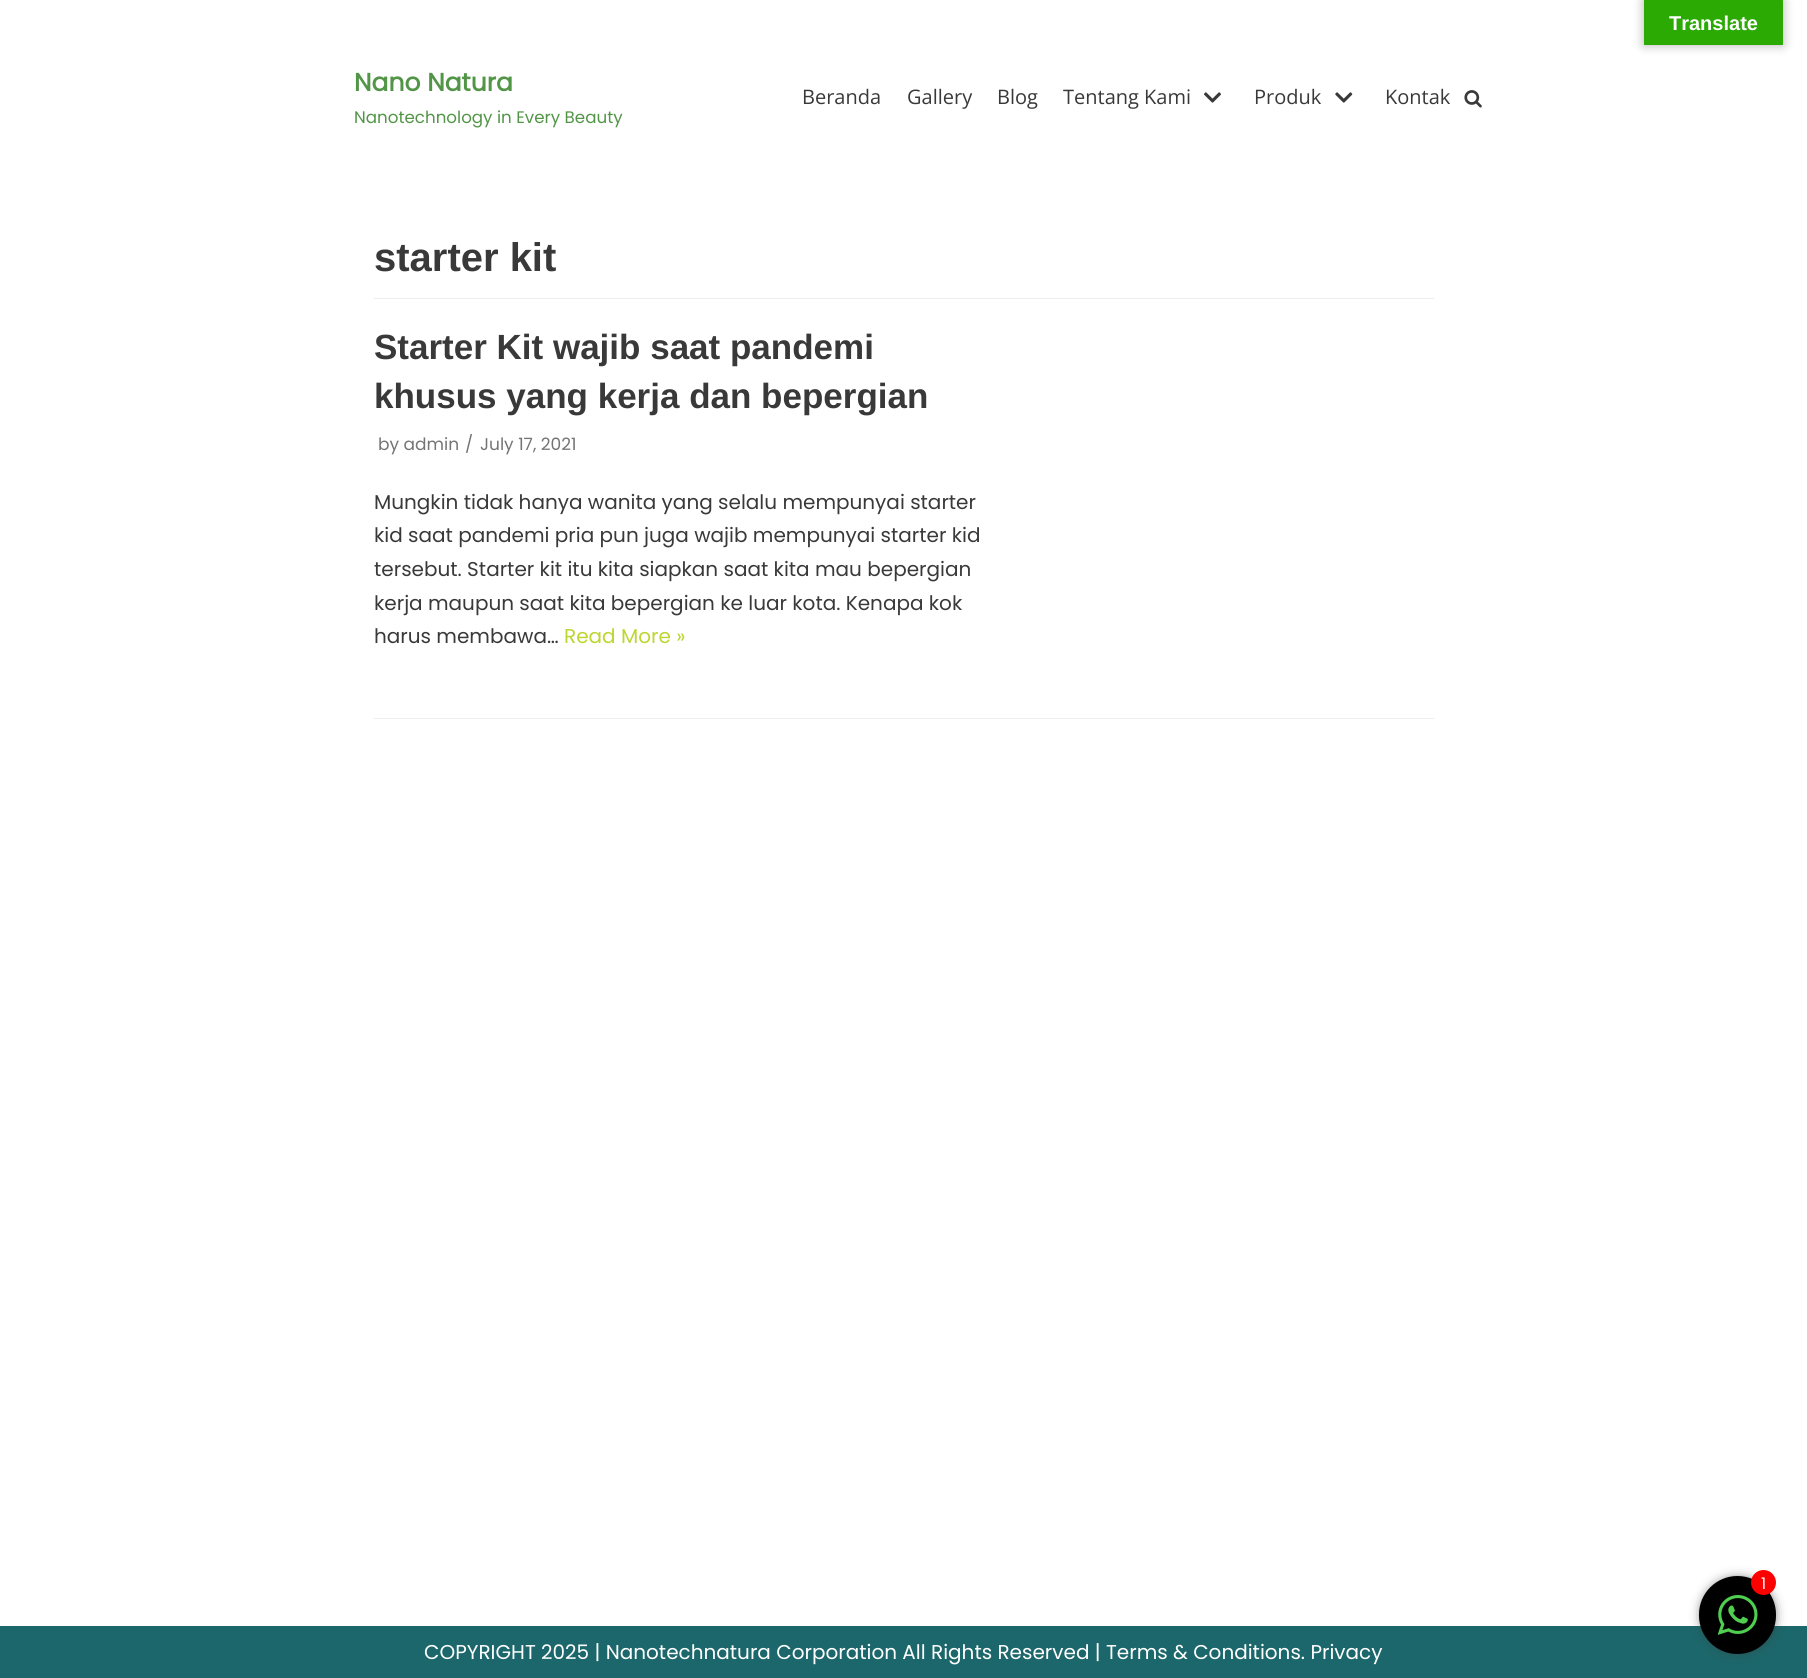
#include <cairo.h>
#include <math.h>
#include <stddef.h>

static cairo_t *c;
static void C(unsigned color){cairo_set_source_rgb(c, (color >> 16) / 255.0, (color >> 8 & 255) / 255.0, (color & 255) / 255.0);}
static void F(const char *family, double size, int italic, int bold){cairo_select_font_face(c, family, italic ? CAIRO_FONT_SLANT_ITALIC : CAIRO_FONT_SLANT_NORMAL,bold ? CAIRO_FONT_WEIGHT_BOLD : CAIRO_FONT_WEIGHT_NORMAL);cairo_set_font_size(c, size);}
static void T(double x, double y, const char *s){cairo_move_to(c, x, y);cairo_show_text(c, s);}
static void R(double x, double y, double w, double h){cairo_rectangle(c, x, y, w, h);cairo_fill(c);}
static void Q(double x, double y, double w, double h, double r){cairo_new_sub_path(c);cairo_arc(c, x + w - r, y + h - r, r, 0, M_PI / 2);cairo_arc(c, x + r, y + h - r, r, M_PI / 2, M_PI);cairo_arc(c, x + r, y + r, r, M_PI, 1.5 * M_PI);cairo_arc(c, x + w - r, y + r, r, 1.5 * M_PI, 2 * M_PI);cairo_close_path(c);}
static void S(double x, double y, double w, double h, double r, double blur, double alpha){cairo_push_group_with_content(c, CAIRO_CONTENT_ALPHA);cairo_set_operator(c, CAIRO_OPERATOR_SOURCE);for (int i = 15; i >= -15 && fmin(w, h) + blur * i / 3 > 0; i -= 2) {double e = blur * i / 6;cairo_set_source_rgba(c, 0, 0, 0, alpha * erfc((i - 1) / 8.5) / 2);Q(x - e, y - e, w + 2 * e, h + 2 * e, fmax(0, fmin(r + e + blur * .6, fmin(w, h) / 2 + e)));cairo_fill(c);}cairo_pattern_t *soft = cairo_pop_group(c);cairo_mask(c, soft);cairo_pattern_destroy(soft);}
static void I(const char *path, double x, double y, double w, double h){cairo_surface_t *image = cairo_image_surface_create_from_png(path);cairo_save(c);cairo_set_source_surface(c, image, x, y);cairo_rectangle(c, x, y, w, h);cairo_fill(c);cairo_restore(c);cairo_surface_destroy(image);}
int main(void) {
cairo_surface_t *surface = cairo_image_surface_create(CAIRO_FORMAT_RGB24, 1807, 1678);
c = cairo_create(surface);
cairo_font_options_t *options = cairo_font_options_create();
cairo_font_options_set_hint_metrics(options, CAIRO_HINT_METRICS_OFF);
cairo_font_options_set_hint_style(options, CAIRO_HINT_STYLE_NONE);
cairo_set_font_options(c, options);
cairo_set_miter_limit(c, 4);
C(0xffffff);
cairo_paint(c);
C(0x000000);
S(1644,0,139,45,0,5.5,.3);
C(0x2aaa03);
R(1644,0,139,45);
F("Liberation Sans",20,0,1);
C(0xffffff);
T(1669,30,"Translate");
F("Poppins",25,0,1);
C(0x529547);
T(354,91,"Nano Natura");
F("Poppins",16.7,0,0);
T(354,123,"Nanotechnology in Every Beauty");
F("Open Sans",20,0,0);
C(0x393939);
T(802,104,"Beranda");
T(907,104,"Gallery");
T(997,104,"Blog");
T(1063,104,"Tentang Kami");
I("1.png",1204,92,17,11);
T(1254,104,"Produk");
I("2.png",1335,92,18,11);
T(1385,104,"Kontak");
I("3.png",1464,90,18,18);
C(0xededed);
R(374,298,1060,1);
F("Liberation Sans",40,0,1);
C(0x393939);
T(374,271,"starter kit");
C(0xededed);
R(374,718,1060,1);
F("Liberation Sans",35,0,1);
C(0x393939);
T(374,359,"Starter Kit wajib saat pandemi");
T(374,408,"khusus yang kerja dan bepergian");
F("Poppins",17,0,0);
C(0x747474);
T(378,450,"by admin");
T(465,450,"/");
T(480,450,"July 17, 2021");
F("Poppins",20,0,0);
C(0x393939);
T(374,509,"Mungkin tidak hanya wanita yang selalu mempunyai starter");
T(374,542,"kid saat pandemi pria pun juga wajib mempunyai starter kid");
T(374,576,"tersebut. Starter kit itu kita siapkan saat kita mau bepergian");
T(374,610,"kerja maupun saat kita bepergian ke luar kota. Kenapa kok");
T(374,643,"harus membawa…");
C(0xbdd630);
T(564,643,"Read More »");
C(0x1c676b);
R(0,1626,1807,52);
C(0xffffff);
T(424,1659,"COPYRIGHT 2025 | Nanotechnatura Corporation All Rights Reserved | Terms & Conditions. Privacy");
C(0x393939);
S(1703,1580,70,70,35,6,1);
C(0x000000);
Q(1699,1576,77,78,38.5);
cairo_fill(c);
C(0xff0000);
cairo_arc(c,1763.5,1582.5,12.5,0,2 * M_PI);
cairo_fill(c);
F("Poppins",16,0,0);
C(0xffffff);
T(1761,1589,"1");
I("4.png",1718,1595,40,40);
cairo_surface_write_to_png(surface, "o.png");
cairo_font_options_destroy(options);
cairo_destroy(c);
cairo_surface_destroy(surface);
return 0;
}
